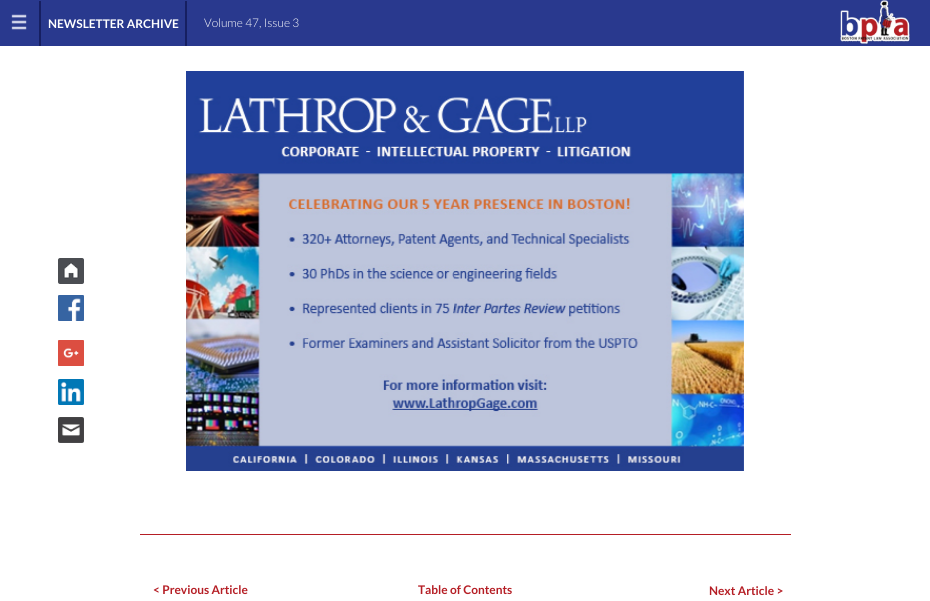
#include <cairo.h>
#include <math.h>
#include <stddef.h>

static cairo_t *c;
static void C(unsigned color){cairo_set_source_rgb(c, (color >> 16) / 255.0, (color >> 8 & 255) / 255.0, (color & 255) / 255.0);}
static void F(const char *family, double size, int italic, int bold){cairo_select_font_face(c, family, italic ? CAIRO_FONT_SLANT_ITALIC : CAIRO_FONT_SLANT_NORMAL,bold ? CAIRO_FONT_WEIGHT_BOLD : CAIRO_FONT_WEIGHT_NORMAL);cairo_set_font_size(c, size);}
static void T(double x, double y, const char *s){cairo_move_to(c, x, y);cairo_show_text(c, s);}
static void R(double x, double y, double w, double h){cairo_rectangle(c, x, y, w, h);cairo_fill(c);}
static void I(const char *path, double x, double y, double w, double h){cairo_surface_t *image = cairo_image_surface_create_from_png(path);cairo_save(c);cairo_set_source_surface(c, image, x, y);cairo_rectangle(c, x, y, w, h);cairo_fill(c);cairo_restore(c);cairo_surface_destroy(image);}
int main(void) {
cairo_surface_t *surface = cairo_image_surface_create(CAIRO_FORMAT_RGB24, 930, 601);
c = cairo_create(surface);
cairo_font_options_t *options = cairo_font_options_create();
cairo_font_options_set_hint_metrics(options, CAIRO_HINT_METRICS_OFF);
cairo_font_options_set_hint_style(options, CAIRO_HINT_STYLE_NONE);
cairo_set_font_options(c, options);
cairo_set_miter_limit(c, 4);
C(0xffffff);
cairo_paint(c);
C(0x29398e);
R(0,0,930,46);
I("1.png",11,14,16,16);
C(0x161f61);
R(185,1,2,45);
R(39,1,2,45);
F("Lato",11.9,0,1);
C(0xffffff);
T(48,28,"NEWSLETTER ARCHIVE");
F("Lato Light",11.9,0,0);
T(204,27,"Volume 47, Issue 3");
I("2.png",840,0,71,45);
I("3.png",58,258,26,26);
I("4.png",58,295,26,26);
I("5.png",58,340,26,26);
I("6.png",58,379,26,26);
I("7.png",58,417,26,26);
I("8.png",186,71,558,400);
C(0xb51e25);
R(140,534,651,1);
F("Lato",11.9,0,1);
T(153,594,"< Previous Article");
T(418,594,"Table of Contents");
T(709,595,"Next Article >");
cairo_surface_write_to_png(surface, "o.png");
cairo_font_options_destroy(options);
cairo_destroy(c);
cairo_surface_destroy(surface);
return 0;
}
